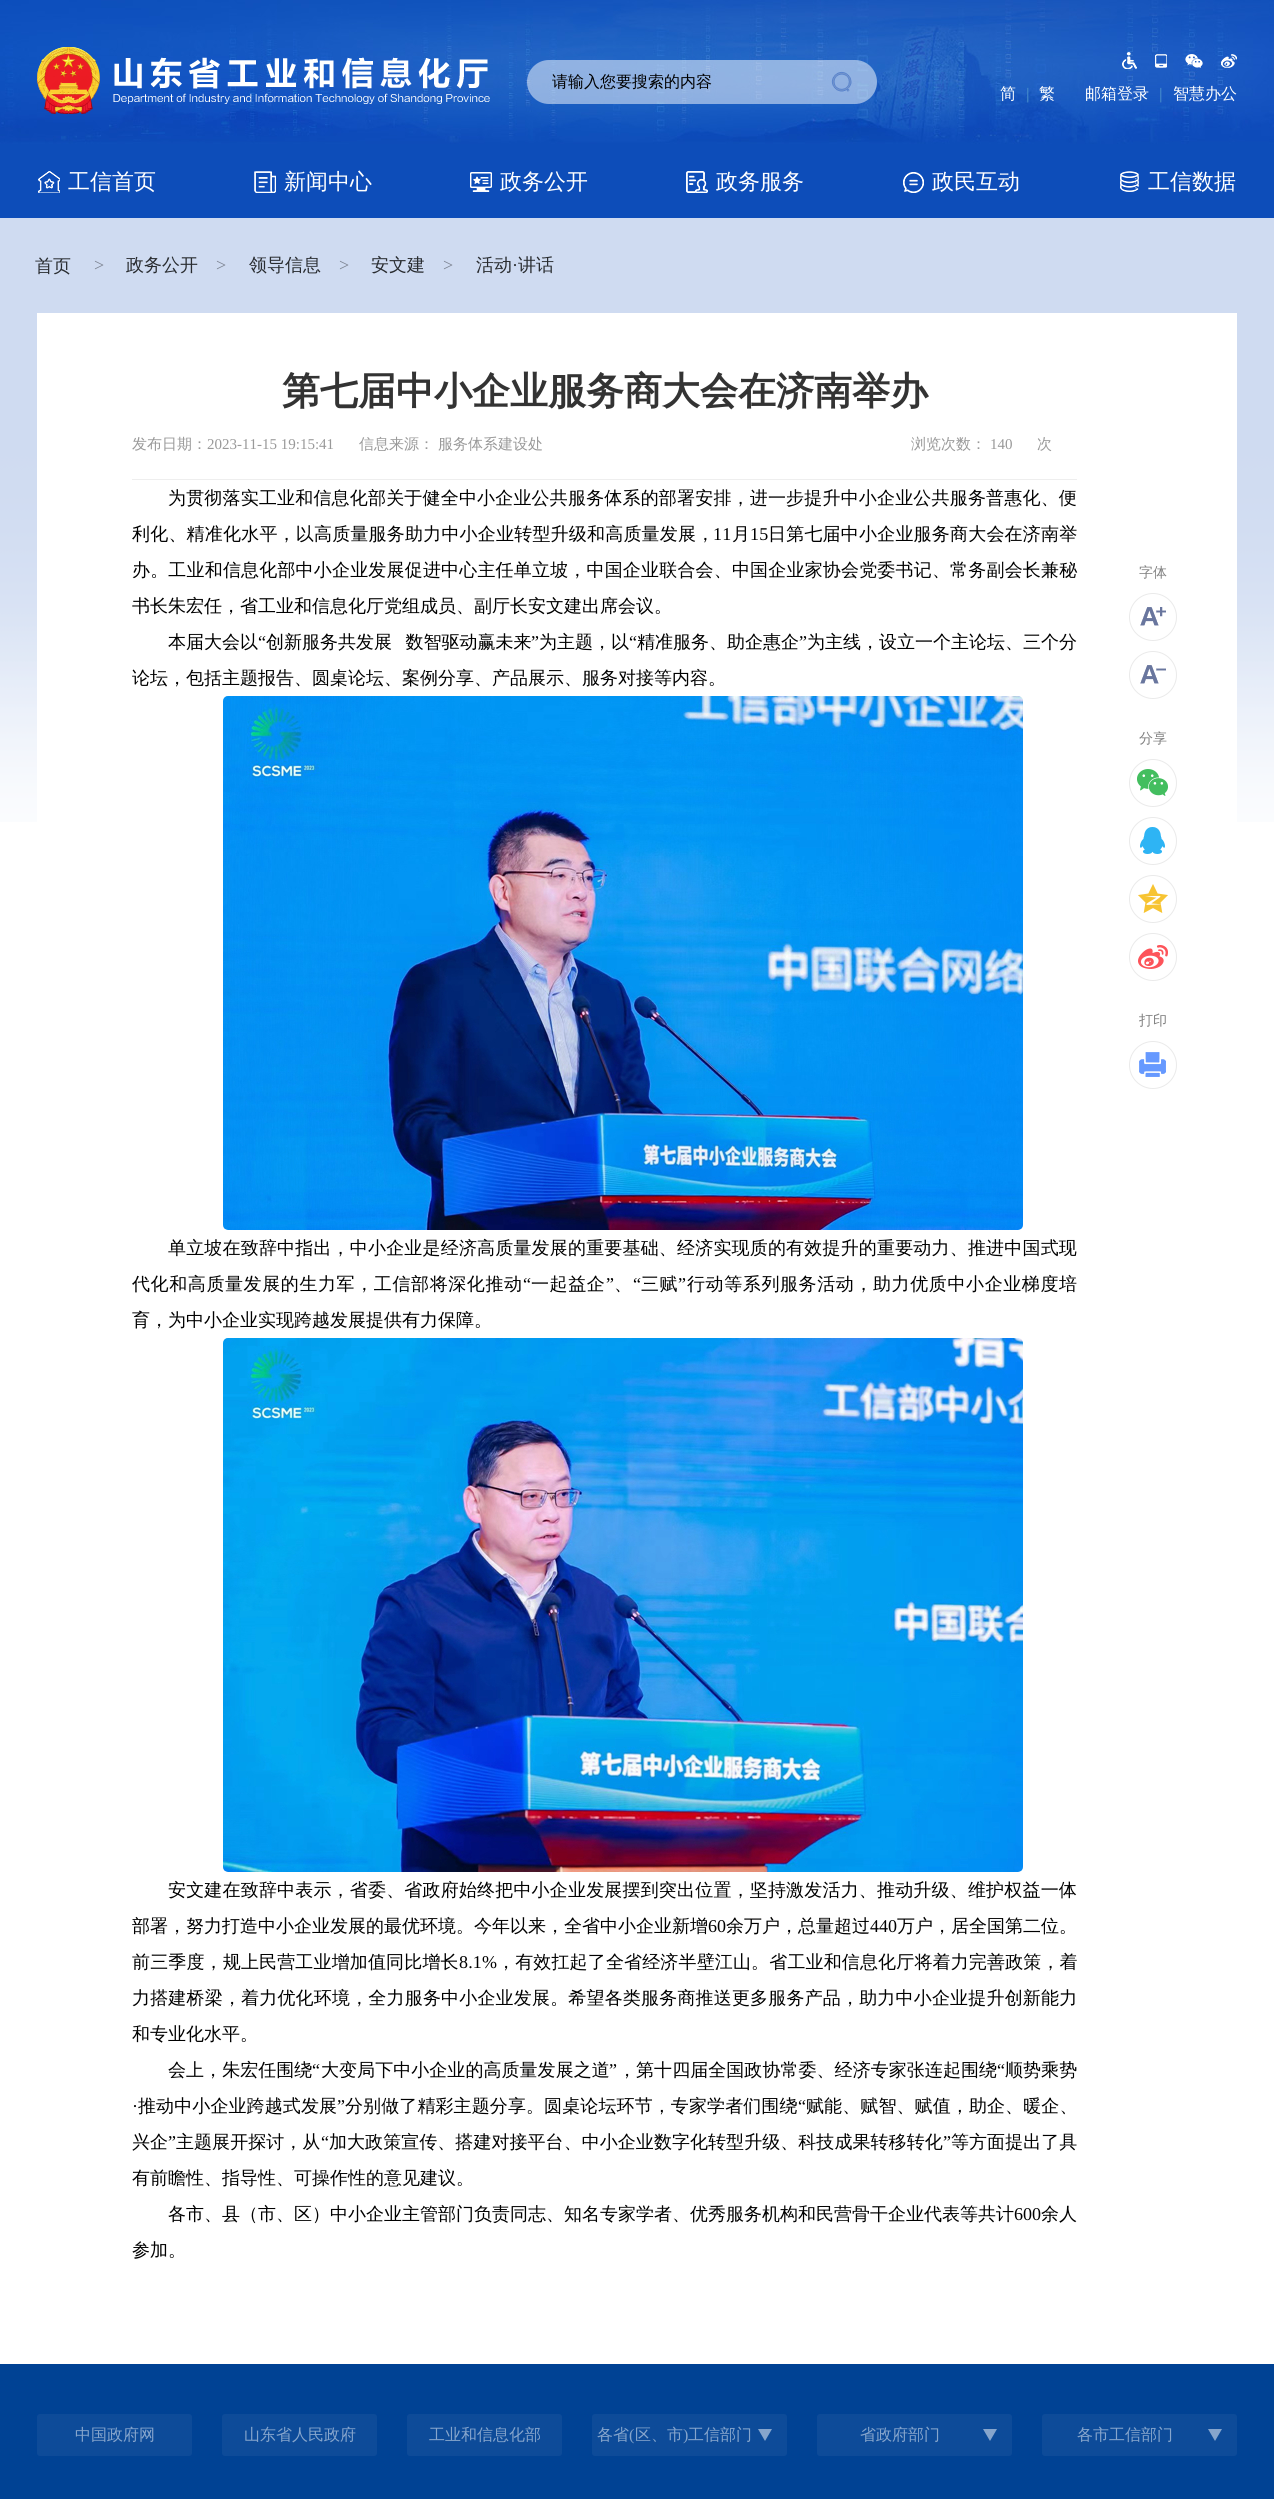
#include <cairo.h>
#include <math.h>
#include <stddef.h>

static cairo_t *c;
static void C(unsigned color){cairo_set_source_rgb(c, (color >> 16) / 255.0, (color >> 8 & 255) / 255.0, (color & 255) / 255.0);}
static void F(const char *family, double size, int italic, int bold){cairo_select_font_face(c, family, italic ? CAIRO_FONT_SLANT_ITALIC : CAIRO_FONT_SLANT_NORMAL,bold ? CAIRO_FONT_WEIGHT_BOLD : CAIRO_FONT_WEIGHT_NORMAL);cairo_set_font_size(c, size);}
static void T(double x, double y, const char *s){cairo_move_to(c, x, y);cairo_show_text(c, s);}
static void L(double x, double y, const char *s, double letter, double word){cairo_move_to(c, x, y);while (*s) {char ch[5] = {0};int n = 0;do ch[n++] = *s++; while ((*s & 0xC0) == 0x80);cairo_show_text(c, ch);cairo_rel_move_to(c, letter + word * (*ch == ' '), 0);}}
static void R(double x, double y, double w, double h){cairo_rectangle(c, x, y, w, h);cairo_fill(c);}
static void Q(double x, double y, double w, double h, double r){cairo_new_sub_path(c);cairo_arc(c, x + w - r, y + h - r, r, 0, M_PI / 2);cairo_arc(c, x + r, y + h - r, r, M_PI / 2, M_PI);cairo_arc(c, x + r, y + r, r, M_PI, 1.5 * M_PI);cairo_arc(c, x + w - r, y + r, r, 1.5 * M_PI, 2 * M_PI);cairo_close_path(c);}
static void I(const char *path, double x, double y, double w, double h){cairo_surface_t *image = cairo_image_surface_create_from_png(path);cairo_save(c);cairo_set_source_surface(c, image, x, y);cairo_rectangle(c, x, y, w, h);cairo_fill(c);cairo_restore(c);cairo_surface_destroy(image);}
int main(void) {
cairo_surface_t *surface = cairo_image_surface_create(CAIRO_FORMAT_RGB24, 1274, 2499);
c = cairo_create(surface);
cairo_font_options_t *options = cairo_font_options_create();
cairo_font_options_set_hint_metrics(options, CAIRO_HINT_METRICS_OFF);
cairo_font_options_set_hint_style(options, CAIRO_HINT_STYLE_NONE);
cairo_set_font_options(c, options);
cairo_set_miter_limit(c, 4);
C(0xffffff);
cairo_paint(c);
I("1.png",0,0,1274,218);
I("2.png",37,47,453,67);
cairo_set_source_rgba(c,1,1,1,0.5);
Q(527,60,350,44,22);
cairo_fill(c);
F("WenQuanYi Zen Hei Medium",16,0,0);
C(0x000000);
T(552,87,"请输入您要搜索的内容");
I("3.png",831,71,21,21);
I("4.png",1122,52,15,17);
I("5.png",1155,54,12,14);
I("6.png",1185,54,18,14);
I("7.png",1221,54,16,14);
C(0xffffff);
T(1000,99,"简");
F("Liberation Serif",16,0,1);
C(0x4489ca);
T(1026,99,"|");
F("WenQuanYi Zen Hei Medium",16,0,0);
C(0xffffff);
T(1039,99,"繁");
T(1085,99,"邮箱登录");
F("Liberation Serif",16,0,1);
C(0x4489ca);
T(1159,99,"|");
F("WenQuanYi Zen Hei Medium",16,0,0);
C(0xffffff);
T(1173,99,"智慧办公");
I("8.png",38,171,22,22);
F("WenQuanYi Zen Hei Medium",22,0,0);
T(68,189,"工信首页");
I("9.png",254,171,22,22);
T(284,189,"新闻中心");
I("10.png",470,172,22,20);
T(500,189,"政务公开");
I("11.png",686,171,22,22);
T(716,189,"政务服务");
I("12.png",903,172,21,21);
T(932,189,"政民互动");
I("13.png",1120,171,19,21);
T(1148,189,"工信数据");
I("14.png",0,218,1274,604);
F("WenQuanYi Zen Hei Medium",18,0,0);
C(0x292c30);
T(35,272,"首页");
F("Liberation Serif",18,0,0);
C(0x7c8391);
T(94,271,">");
F("WenQuanYi Zen Hei Medium",18,0,0);
C(0x292c30);
T(126,271,"政务公开");
F("Liberation Serif",18,0,0);
C(0x7c8391);
T(216,271,">");
F("WenQuanYi Zen Hei Medium",18,0,0);
C(0x292c30);
T(249,271,"领导信息");
F("Liberation Serif",18,0,0);
C(0x7c8391);
T(339,271,">");
F("WenQuanYi Zen Hei Medium",18,0,0);
C(0x292c30);
T(371,271,"安文建");
F("Liberation Serif",18,0,0);
C(0x7c8391);
T(443,271,">");
F("WenQuanYi Zen Hei Medium",18,0,0);
C(0x292c30);
T(476,271,"活动");
F("Liberation Serif",18,0,0);
T(512,271,"·");
F("WenQuanYi Zen Hei Medium",18,0,0);
T(518,271,"讲话");
C(0xffffff);
R(37,313,1200,509);
C(0xeeeeee);
R(132,479,945,1);
F("WenQuanYi Zen Hei",38,0,1);
C(0x333333);
T(282,404,"第七届中小企业服务商大会在济南举办");
F("WenQuanYi Zen Hei Medium",15,0,0);
C(0x999999);
T(132,449,"发布日期：");
F("Liberation Serif",15,0,0);
T(207,449,"2023-11-15 19:15:41");
F("WenQuanYi Zen Hei Medium",15,0,0);
T(359,449,"信息来源：");
T(438,449,"服务体系建设处");
T(911,449,"浏览次数：");
F("Liberation Serif",15,0,0);
T(990,449,"140");
F("WenQuanYi Zen Hei Medium",15,0,0);
T(1037,449,"次");
F("WenQuanYi Zen Hei Medium",18,0,0);
C(0x000000);
L(168,504,"为贯彻落实工业和信息化部关于健全中小企业公共服务体系的部署安排，进一步提升中小企业公共服务普惠化、便",.18,0);
L(132,540,"利化、精准化水平，以高质量服务助力中小企业转型升级和高质量发展，",.2,0);
F("Liberation Serif",18,0,0);
L(713,540,"11",.2,0);
F("WenQuanYi Zen Hei Medium",18,0,0);
L(732,540,"月",.2,0);
F("Liberation Serif",18,0,0);
L(750,540,"15",.2,0);
F("WenQuanYi Zen Hei Medium",18,0,0);
L(768,540,"日第七届中小企业服务商大会在济南举",.2,0);
L(132,576,"办。工业和信息化部中小企业发展促进中心主任单立坡，中国企业联合会、中国企业家协会党委书记、常务副会长兼秘",.18,0);
T(132,612,"书长朱宏任，省工业和信息化厅党组成员、副厅长安文建出席会议。");
T(168,648,"本届大会以");
F("Liberation Serif",18,0,0);
T(258,648,"“");
F("WenQuanYi Zen Hei Medium",18,0,0);
L(266,648,"创新服务共发展 数智驱动赢未来",0,8);
F("Liberation Serif",18,0,0);
T(531,648,"”");
F("WenQuanYi Zen Hei Medium",18,0,0);
T(539,648,"为主题，以");
F("Liberation Serif",18,0,0);
T(629,648,"“");
F("WenQuanYi Zen Hei Medium",18,0,0);
T(637,648,"精准服务、助企惠企");
F("Liberation Serif",18,0,0);
T(799,648,"”");
F("WenQuanYi Zen Hei Medium",18,0,0);
T(807,648,"为主线，设立一个主论坛、三个分");
T(132,684,"论坛，包括主题报告、圆桌论坛、案例分享、产品展示、服务对接等内容。");
I("15.png",223,696,800,534);
L(168,1254,"单立坡在致辞中指出，中小企业是经济高质量发展的重要基础、经济实现质的有效提升的重要动力、推进中国式现",.18,0);
L(132,1290,"代化和高质量发展的生力军，工信部将深化推动",.6,0);
F("Liberation Serif",18,0,0);
L(523,1290,"“",.6,0);
F("WenQuanYi Zen Hei Medium",18,0,0);
L(531,1290,"一起益企",.6,0);
F("Liberation Serif",18,0,0);
L(606,1290,"”",.6,0);
L(633,1290,"“",.6,0);
F("WenQuanYi Zen Hei Medium",18,0,0);
L(641,1290,"三赋",.6,0);
F("Liberation Serif",18,0,0);
L(678,1290,"”",.6,0);
F("WenQuanYi Zen Hei Medium",18,0,0);
L(687,1290,"行动等系列服务活动，助力优质中小企业梯度培",.6,0);
L(614,1290,"、",.6,0);
T(132,1326,"育，为中小企业实现跨越发展提供有力保障。");
I("16.png",223,1338,800,534);
L(168,1896,"安文建在致辞中表示，省委、省政府始终把中小企业发展摆到突出位置，坚持激发活力、推动升级、维护权益一体",.18,0);
T(132,1932,"部署，努力打造中小企业发展的最优环境。今年以来，全省中小企业新增");
F("Liberation Serif",18,0,0);
T(708,1932,"60");
F("WenQuanYi Zen Hei Medium",18,0,0);
T(726,1932,"余万户，总量超过");
F("Liberation Serif",18,0,0);
T(870,1932,"440");
F("WenQuanYi Zen Hei Medium",18,0,0);
T(897,1932,"万户，居全国第二位。");
L(132,1968,"前三季度，规上民营工业增加值同比增长",.15,0);
F("Liberation Serif",18,0,0);
L(459,1968,"8.1%",.15,0);
F("WenQuanYi Zen Hei Medium",18,0,0);
L(497,1968,"，有效扛起了全省经济半壁江山。省工业和信息化厅将着力完善政策，着",.15,0);
L(132,2004,"力搭建桥梁，着力优化环境，全力服务中小企业发展。希望各类服务商推送更多服务产品，助力中小企业提升创新能力",.18,0);
T(132,2040,"和专业化水平。");
L(168,2076,"会上，朱宏任围绕",.05,0);
F("Liberation Serif",18,0,0);
L(312,2076,"“",.05,0);
F("WenQuanYi Zen Hei Medium",18,0,0);
L(321,2076,"大变局下中小企业的高质量发展之道",.05,0);
F("Liberation Serif",18,0,0);
L(609,2076,"”",.05,0);
F("WenQuanYi Zen Hei Medium",18,0,0);
L(618,2076,"，第十四届全国政协常委、经济专家张连起围绕",.05,0);
F("Liberation Serif",18,0,0);
L(997,2076,"“",.05,0);
F("WenQuanYi Zen Hei Medium",18,0,0);
L(1005,2076,"顺势乘势",.05,0);
L(138,2112,"推动中小企业跨越式发展",.1,0);
F("Liberation Serif",18,0,0);
L(337,2112,"”",.1,0);
F("WenQuanYi Zen Hei Medium",18,0,0);
L(345,2112,"分别做了精彩主题分享。圆桌论坛环节，专家学者们围绕",.1,0);
F("Liberation Serif",18,0,0);
L(798,2112,"“",.1,0);
F("WenQuanYi Zen Hei Medium",18,0,0);
L(806,2112,"赋能、赋智、赋值，助企、暖企、",.1,0);
F("Liberation Serif",18,0,0);
L(132,2112,"·",.1,0);
F("WenQuanYi Zen Hei Medium",18,0,0);
L(132,2148,"兴企",.05,0);
F("Liberation Serif",18,0,0);
L(168,2148,"”",.05,0);
F("WenQuanYi Zen Hei Medium",18,0,0);
L(176,2148,"主题展开探讨，从",.05,0);
F("Liberation Serif",18,0,0);
L(321,2148,"“",.05,0);
F("WenQuanYi Zen Hei Medium",18,0,0);
L(329,2148,"加大政策宣传、搭建对接平台、中小企业数字化转型升级、科技成果转移转化",.05,0);
F("Liberation Serif",18,0,0);
L(943,2148,"”",.05,0);
F("WenQuanYi Zen Hei Medium",18,0,0);
L(951,2148,"等方面提出了具",.05,0);
T(132,2184,"有前瞻性、指导性、可操作性的意见建议。");
T(168,2220,"各市、县（市、区）中小企业主管部门负责同志、知名专家学者、优秀服务机构和民营骨干企业代表等共计");
F("Liberation Serif",18,0,0);
T(1014,2220,"600");
F("WenQuanYi Zen Hei Medium",18,0,0);
T(1041,2220,"余人");
T(132,2256,"参加。");
F("WenQuanYi Zen Hei Medium",14,0,0);
C(0x808080);
T(1139,577,"字体");
cairo_new_path(c);
cairo_arc(c,1153,617,23.5,0,2 * M_PI);
C(0xeaeaea);
cairo_set_line_width(c,1);
cairo_stroke(c);
I("17.png",1140,607,26,19);
cairo_arc(c,1153,675,23.5,0,2 * M_PI);
cairo_stroke(c);
I("18.png",1140,665,26,19);
C(0x808080);
T(1139,743,"分享");
cairo_new_path(c);
cairo_arc(c,1153,783,23.5,0,2 * M_PI);
C(0xeaeaea);
cairo_stroke(c);
I("19.png",1137,769,31,27);
cairo_arc(c,1153,841,23.5,0,2 * M_PI);
cairo_stroke(c);
I("20.png",1140,827,25,27);
cairo_arc(c,1153,899,23.5,0,2 * M_PI);
cairo_stroke(c);
I("21.png",1138,884,30,29);
cairo_arc(c,1153,957,23.5,0,2 * M_PI);
cairo_stroke(c);
I("22.png",1138,945,30,24);
C(0x808080);
T(1139,1025,"打印");
cairo_new_path(c);
cairo_arc(c,1153,1065,23.5,0,2 * M_PI);
C(0xeaeaea);
cairo_stroke(c);
I("23.png",1139,1052,27,25);
C(0x004294);
R(0,2364,1274,135);
C(0x0d4b99);
Q(37,2414,155,42,3);
cairo_fill(c);
F("WenQuanYi Zen Hei Medium",16,0,0);
C(0x86a5cc);
T(75,2440,"中国政府网");
C(0x0d4b99);
Q(222,2414,155,42,3);
cairo_fill(c);
C(0x86a5cc);
T(244,2440,"山东省人民政府");
C(0x0d4b99);
Q(407,2414,155,42,3);
cairo_fill(c);
C(0x86a5cc);
T(429,2440,"工业和信息化部");
C(0x0d4b99);
Q(592,2414,195,42,3);
cairo_fill(c);
C(0x86a5cc);
T(597,2440,"各省");
F("Liberation Serif",16,0,0);
T(629,2440,"(");
F("WenQuanYi Zen Hei Medium",16,0,0);
T(635,2440,"区、市");
F("Liberation Serif",16,0,0);
T(683,2440,")");
F("WenQuanYi Zen Hei Medium",16,0,0);
T(688,2440,"工信部门");
cairo_new_path(c);
cairo_move_to(c,758,2429);
cairo_line_to(c,772,2429);
cairo_line_to(c,765,2441);
cairo_close_path(c);
cairo_fill(c);
C(0x0d4b99);
Q(817,2414,195,42,3);
cairo_fill(c);
C(0x86a5cc);
T(860,2440,"省政府部门");
cairo_new_path(c);
cairo_move_to(c,983,2429);
cairo_line_to(c,997,2429);
cairo_line_to(c,990,2441);
cairo_close_path(c);
cairo_fill(c);
C(0x0d4b99);
Q(1042,2414,195,42,3);
cairo_fill(c);
C(0x86a5cc);
T(1077,2440,"各市工信部门");
cairo_new_path(c);
cairo_move_to(c,1208,2429);
cairo_line_to(c,1222,2429);
cairo_line_to(c,1215,2441);
cairo_close_path(c);
cairo_fill(c);
cairo_surface_write_to_png(surface, "o.png");
cairo_font_options_destroy(options);
cairo_destroy(c);
cairo_surface_destroy(surface);
return 0;
}
